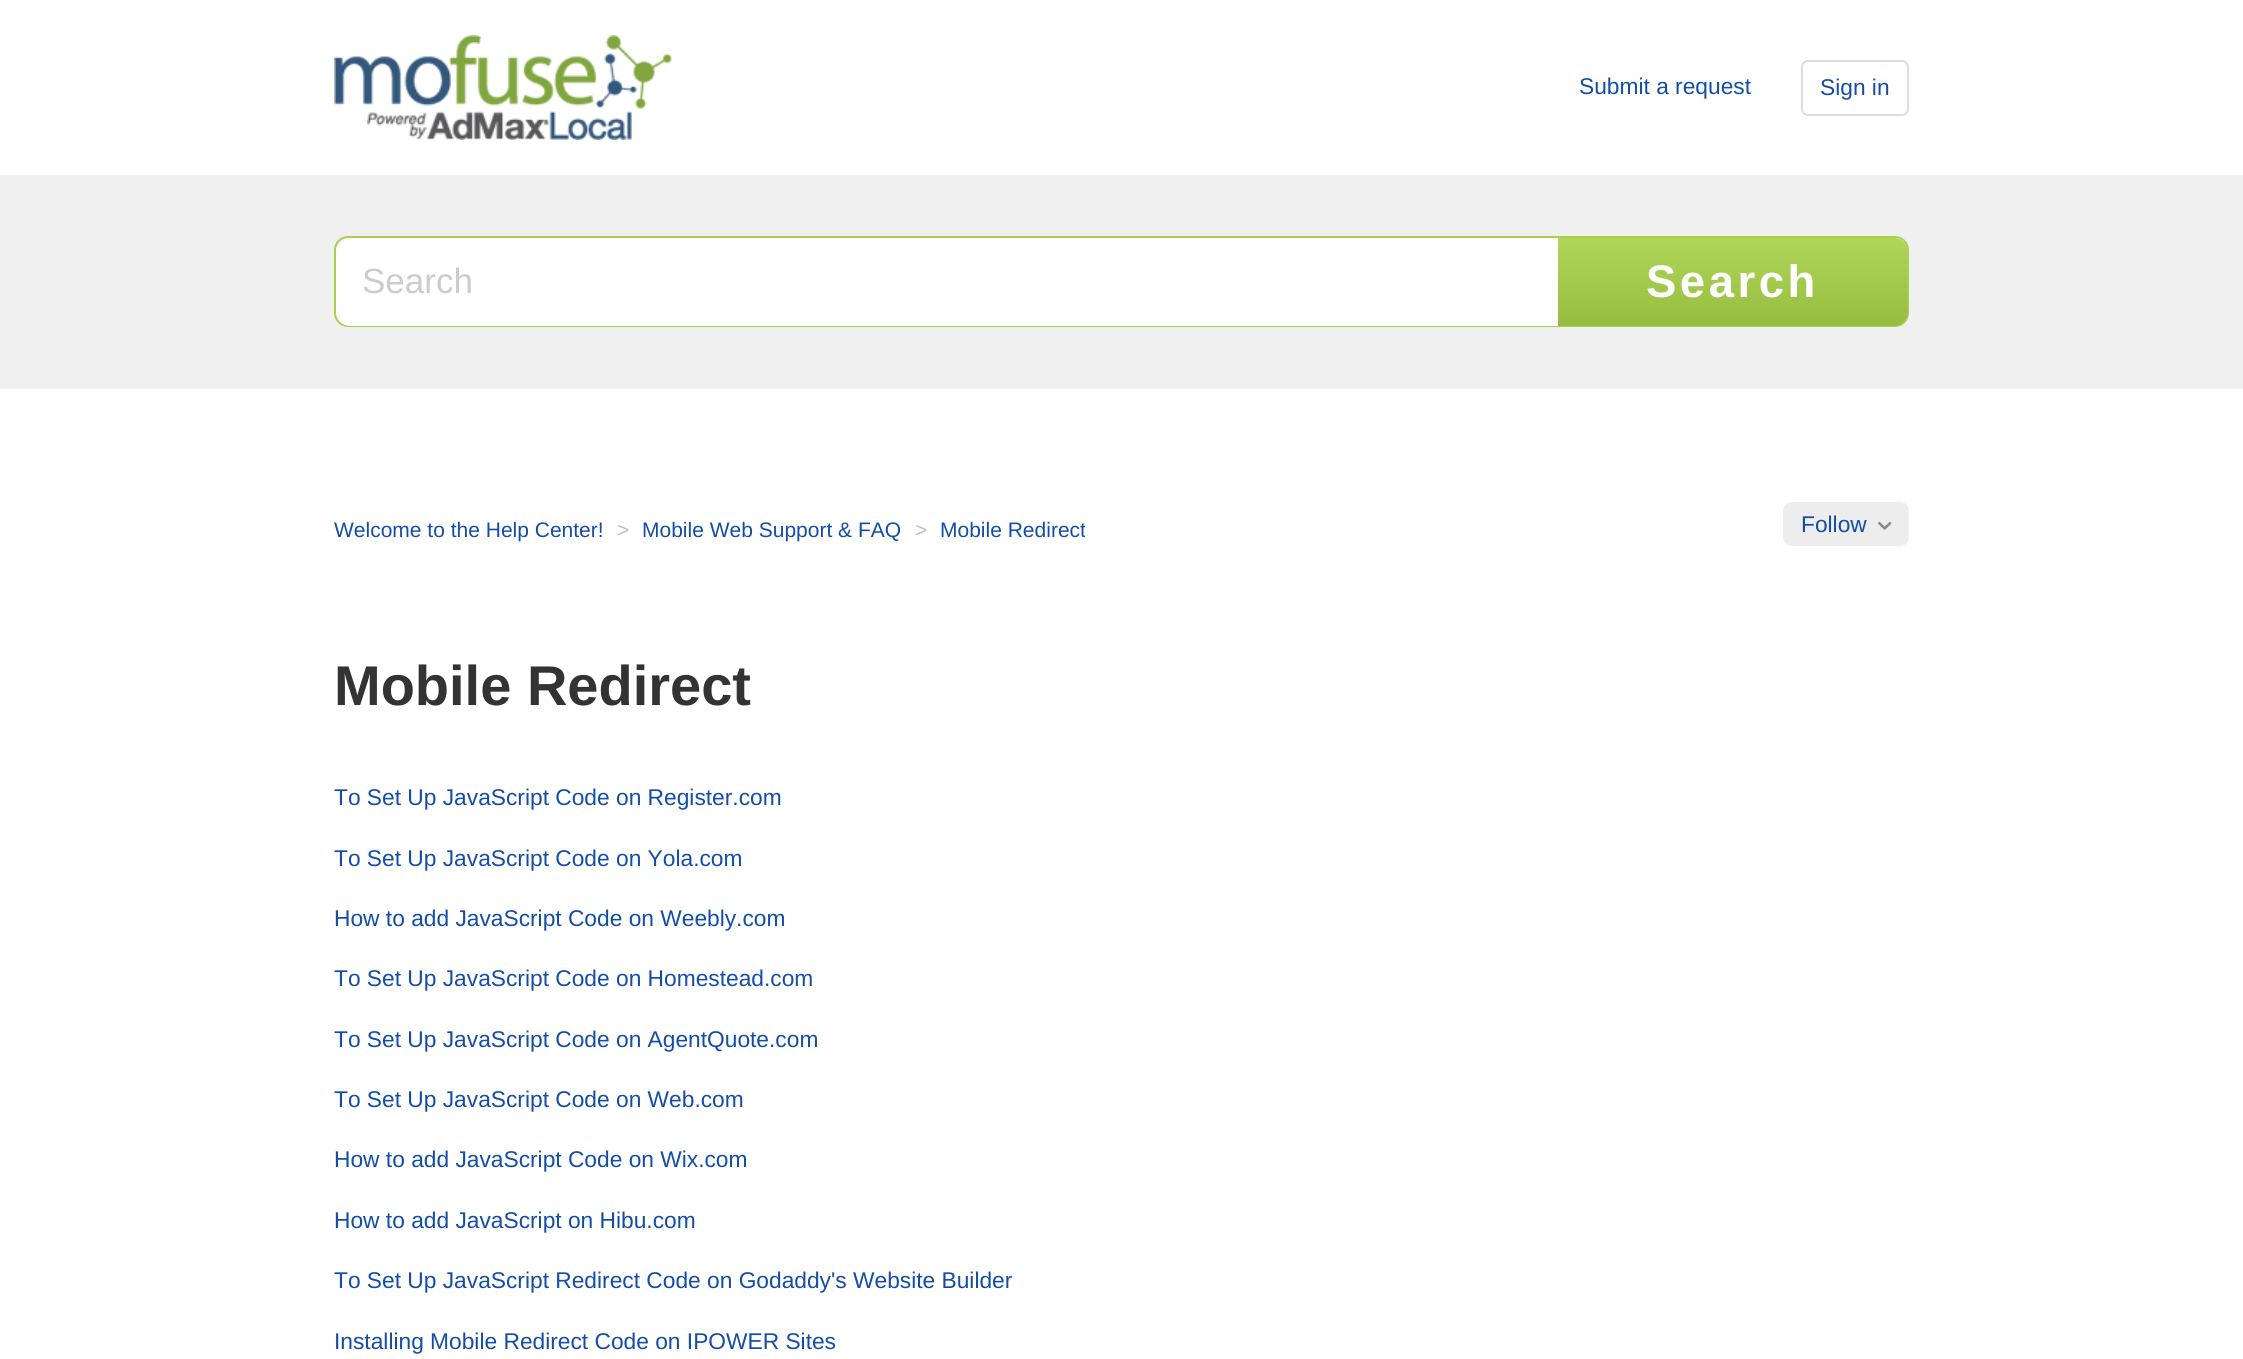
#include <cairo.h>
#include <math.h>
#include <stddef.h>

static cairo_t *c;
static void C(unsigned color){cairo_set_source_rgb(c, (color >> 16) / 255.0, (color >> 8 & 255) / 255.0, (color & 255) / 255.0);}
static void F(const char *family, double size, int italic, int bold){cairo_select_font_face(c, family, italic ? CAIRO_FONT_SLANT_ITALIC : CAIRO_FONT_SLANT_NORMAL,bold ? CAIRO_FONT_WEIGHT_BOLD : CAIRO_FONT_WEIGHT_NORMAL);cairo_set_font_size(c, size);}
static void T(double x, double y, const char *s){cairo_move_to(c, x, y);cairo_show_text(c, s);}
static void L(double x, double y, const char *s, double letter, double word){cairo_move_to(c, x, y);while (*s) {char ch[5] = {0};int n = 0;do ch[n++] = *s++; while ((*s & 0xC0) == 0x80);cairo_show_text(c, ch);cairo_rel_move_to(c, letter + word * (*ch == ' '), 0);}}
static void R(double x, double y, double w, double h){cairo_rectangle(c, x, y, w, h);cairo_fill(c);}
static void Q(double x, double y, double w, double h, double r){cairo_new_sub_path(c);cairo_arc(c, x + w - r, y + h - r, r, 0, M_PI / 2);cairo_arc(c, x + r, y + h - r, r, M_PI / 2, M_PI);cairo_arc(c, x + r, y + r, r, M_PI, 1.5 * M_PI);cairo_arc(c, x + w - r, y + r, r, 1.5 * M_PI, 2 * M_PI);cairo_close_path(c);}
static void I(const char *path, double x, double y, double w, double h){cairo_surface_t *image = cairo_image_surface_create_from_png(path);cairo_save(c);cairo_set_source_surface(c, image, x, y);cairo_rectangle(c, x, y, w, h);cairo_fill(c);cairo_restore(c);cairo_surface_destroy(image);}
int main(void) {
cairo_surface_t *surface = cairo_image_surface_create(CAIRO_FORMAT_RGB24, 2243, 1359);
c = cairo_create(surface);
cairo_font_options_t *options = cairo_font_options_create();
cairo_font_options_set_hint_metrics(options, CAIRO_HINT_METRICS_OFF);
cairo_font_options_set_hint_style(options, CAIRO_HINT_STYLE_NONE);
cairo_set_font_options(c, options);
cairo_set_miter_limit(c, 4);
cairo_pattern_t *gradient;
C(0xffffff);
cairo_paint(c);
I("1.png",334,35,338,105);
F("Liberation Sans",22.75,0,0);
C(0x134da7);
T(1579,94,"Submit a request");
Q(1802,61,106,54,6);
C(0xdddddd);
cairo_stroke(c);
C(0x134da7);
T(1820,95,"Sign in");
C(0xf0f0f0);
cairo_new_path(c);
cairo_move_to(c,1908,388);
cairo_line_to(c,1908,389);
cairo_line_to(c,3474,389);
cairo_line_to(c,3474,175);
cairo_line_to(c,1909,175);
cairo_line_to(c,1909,388);
cairo_close_path(c);
cairo_fill(c);
cairo_new_path(c);
cairo_move_to(c,-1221,175);
cairo_line_to(c,-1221,389);
cairo_line_to(c,345,389);
cairo_line_to(c,345,388);
cairo_line_to(c,343,388);
cairo_line_to(c,343,175);
cairo_close_path(c);
cairo_fill(c);
R(343,175,1566,214);
Q(335,237,1573,89,13);
C(0xa7d247);
cairo_stroke(c);
C(0xffffff);
cairo_new_path(c);
cairo_move_to(c,350,238);
cairo_line_to(c,1561,238);
cairo_line_to(c,1561,326);
cairo_line_to(c,350,326);
cairo_curve_to(c,342.5,326,336,319.5,336,312);
cairo_line_to(c,336,252);
cairo_curve_to(c,336,244.5,342.5,238,350,238);
cairo_close_path(c);
cairo_fill(c);
F("Liberation Sans",35,0,0);
C(0xcccccc);
T(362,293,"Search");
C(0xa7d247);
cairo_new_path(c);
cairo_move_to(c,1558,238);
cairo_line_to(c,1894,238);
cairo_curve_to(c,1901.5,238,1908,244.5,1908,252);
cairo_line_to(c,1908,312);
cairo_curve_to(c,1908,319.5,1901.5,326,1894,326);
cairo_line_to(c,1558,326);
cairo_close_path(c);
cairo_fill(c);
gradient = cairo_pattern_create_linear(1733,326,1733,238);
cairo_pattern_add_color_stop_rgba(gradient,0,0,0,0,.1);
cairo_pattern_add_color_stop_rgba(gradient,1,1,1,1,.1);
cairo_set_source(c,gradient);
cairo_pattern_destroy(gradient);
cairo_new_path(c);
cairo_move_to(c,1558,238);
cairo_line_to(c,1894,238);
cairo_curve_to(c,1901.5,238,1908,244.5,1908,252);
cairo_line_to(c,1908,312);
cairo_curve_to(c,1908,319.5,1901.5,326,1894,326);
cairo_line_to(c,1558,326);
cairo_close_path(c);
cairo_fill(c);
F("Liberation Sans",45.5,0,1);
C(0xffffff);
L(1646,297,"Search",3.5,0);
F("Liberation Sans",21,0,0);
C(0x134da7);
T(334,537,"Welcome to the Help Center!");
C(0xbebebe);
T(617,537,">");
C(0x134da7);
T(642,537,"Mobile Web Support & FAQ");
C(0xbebebe);
T(915,537,">");
cairo_save(c);
cairo_rectangle(c,908,515,177,31);
cairo_clip(c);
C(0x134da7);
T(940,537,"Mobile Redirect");
cairo_restore(c);
C(0xededed);
Q(1783,502,126,44,9);
cairo_fill(c);
F("Liberation Sans",22.75,0,0);
C(0x134da7);
T(1801,532,"Follow");
I("2.png",1878,521,14,9);
F("Liberation Sans",56,0,1);
C(0x333333);
T(334,705,"Mobile Redirect");
F("Liberation Sans",22.75,0,0);
C(0x134da7);
T(334,805,"To Set Up JavaScript Code on Register.com");
T(334,866,"To Set Up JavaScript Code on Yola.com");
T(334,926,"How to add JavaScript Code on Weebly.com");
T(334,986,"To Set Up JavaScript Code on Homestead.com");
T(334,1047,"To Set Up JavaScript Code on AgentQuote.com");
T(334,1107,"To Set Up JavaScript Code on Web.com");
T(334,1167,"How to add JavaScript Code on Wix.com");
T(334,1228,"How to add JavaScript on Hibu.com");
T(334,1288,"To Set Up JavaScript Redirect Code on Godaddy's Website Builder");
T(334,1349,"Installing Mobile Redirect Code on IPOWER Sites");
cairo_surface_write_to_png(surface, "o.png");
cairo_font_options_destroy(options);
cairo_destroy(c);
cairo_surface_destroy(surface);
return 0;
}
